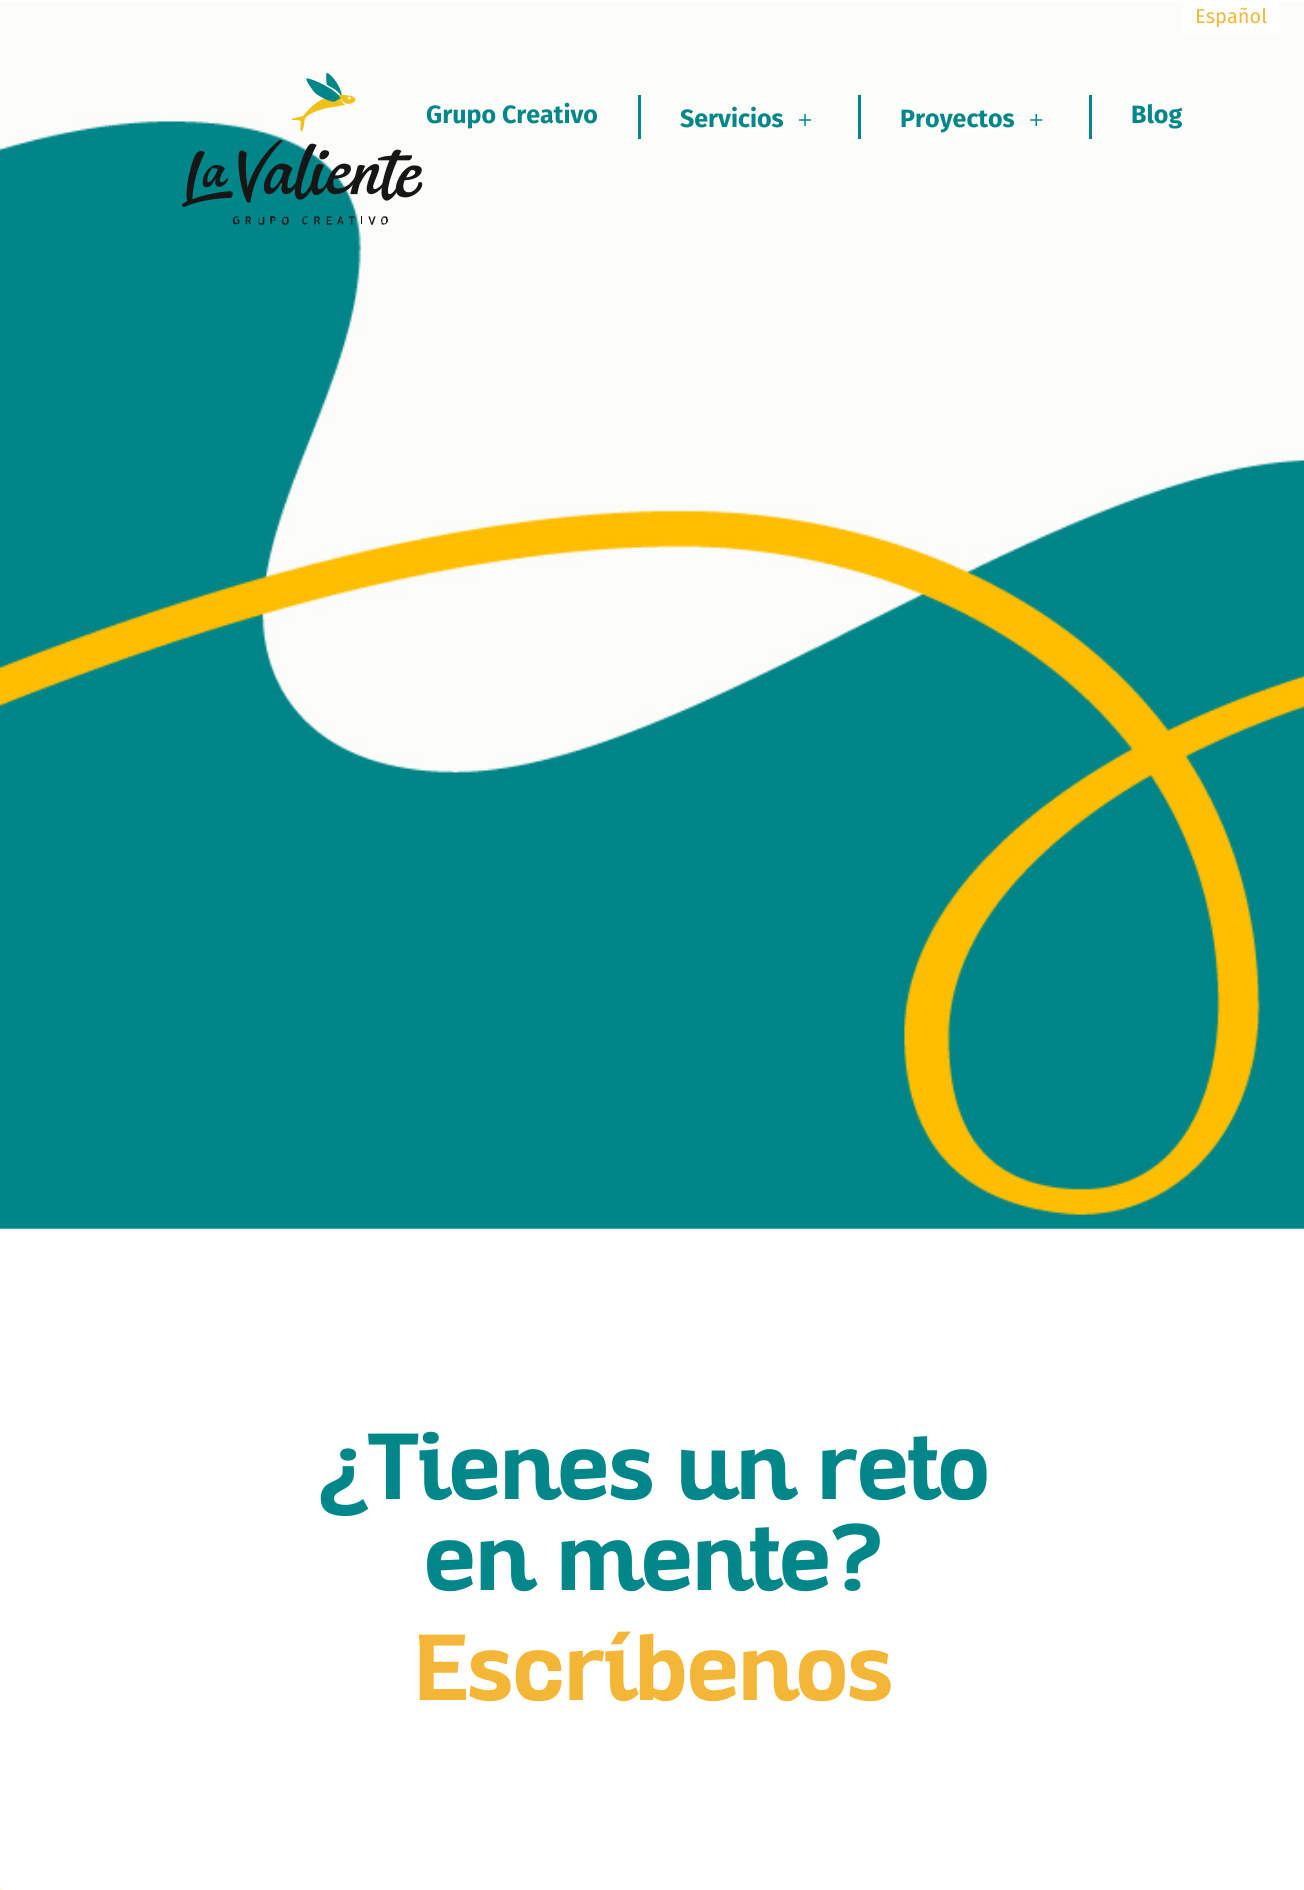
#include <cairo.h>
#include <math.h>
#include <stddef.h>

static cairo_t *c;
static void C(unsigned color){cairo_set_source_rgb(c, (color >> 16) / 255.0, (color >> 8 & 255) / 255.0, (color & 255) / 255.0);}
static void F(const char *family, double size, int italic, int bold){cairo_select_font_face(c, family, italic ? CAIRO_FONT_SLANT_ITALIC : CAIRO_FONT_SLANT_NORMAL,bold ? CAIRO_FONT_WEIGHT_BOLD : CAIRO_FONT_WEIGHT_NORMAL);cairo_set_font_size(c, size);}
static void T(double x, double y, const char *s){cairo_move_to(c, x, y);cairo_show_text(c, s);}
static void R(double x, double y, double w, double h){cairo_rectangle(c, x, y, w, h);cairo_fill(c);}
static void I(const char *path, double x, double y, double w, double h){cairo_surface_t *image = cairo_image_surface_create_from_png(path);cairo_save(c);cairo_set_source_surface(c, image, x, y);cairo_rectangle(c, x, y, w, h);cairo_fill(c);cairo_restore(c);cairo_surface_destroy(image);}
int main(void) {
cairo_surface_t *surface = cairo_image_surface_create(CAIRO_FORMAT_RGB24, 1304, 1890);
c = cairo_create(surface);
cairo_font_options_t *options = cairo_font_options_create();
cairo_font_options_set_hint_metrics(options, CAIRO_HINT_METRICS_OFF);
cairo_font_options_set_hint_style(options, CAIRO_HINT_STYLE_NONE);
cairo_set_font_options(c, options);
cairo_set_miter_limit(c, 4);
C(0xffffff);
cairo_paint(c);
I("1.png",0,2,1304,1227);
C(0xffffff);
R(1183,2,97,33);
F("Fira Sans",20,0,0);
C(0xf3b637);
T(1195,23,"Español");
C(0xfff8e3);
R(0,1887,3,3);
F("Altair",91.25,0,1);
C(0x018689);
T(315,1499,"¿Tienes un reto");
T(425,1590,"en mente?");
C(0xf3b637);
T(412,1700,"Escríbenos");
I("2.png",182,72,241,153);
C(0x018689);
R(638,95,3,44);
F("Fira Sans",25,0,1);
T(426,123,"Grupo Creativo");
R(858,95,3,44);
T(680,127,"Servicios");
I("3.png",798,113,14,14);
R(1089,95,3,44);
T(900,127,"Proyectos");
I("4.png",1030,113,13,14);
T(1131,123,"Blog");
cairo_surface_write_to_png(surface, "o.png");
cairo_font_options_destroy(options);
cairo_destroy(c);
cairo_surface_destroy(surface);
return 0;
}
